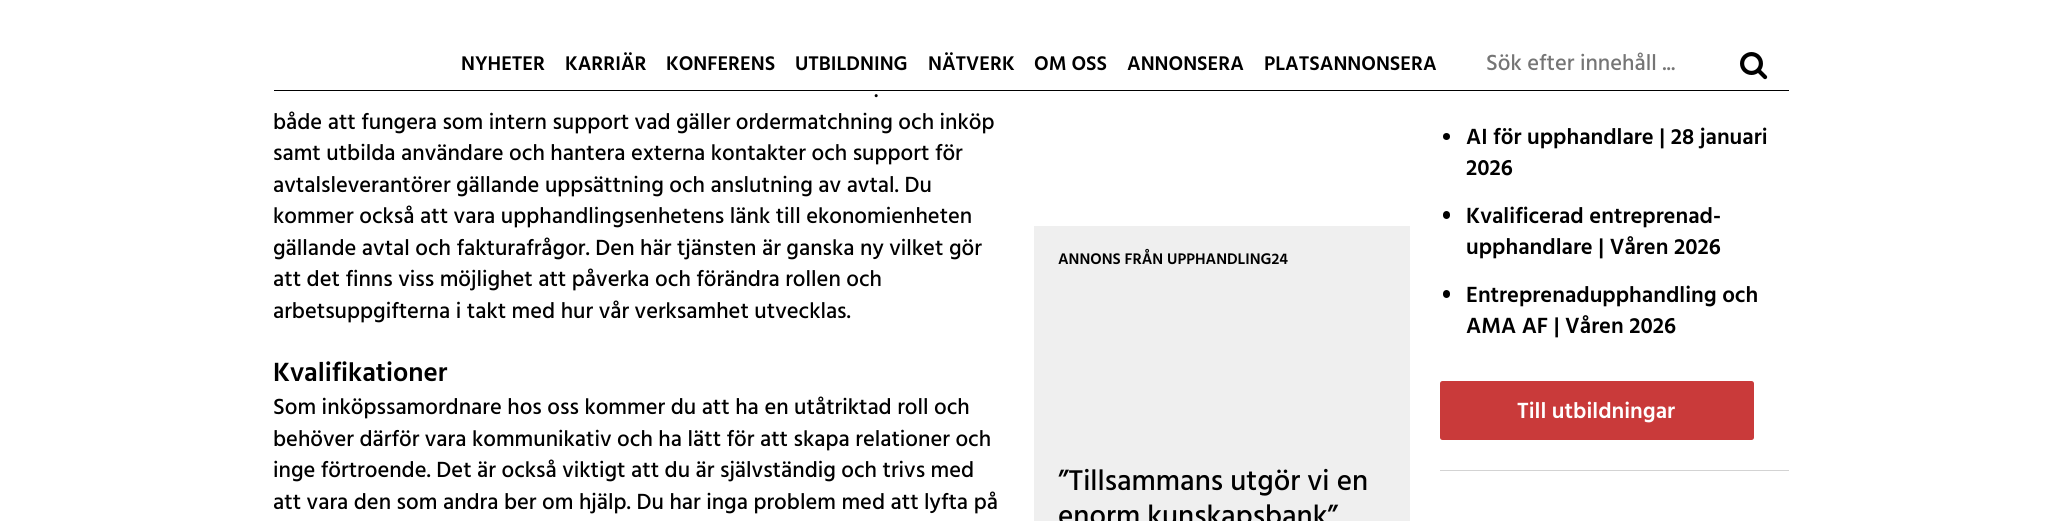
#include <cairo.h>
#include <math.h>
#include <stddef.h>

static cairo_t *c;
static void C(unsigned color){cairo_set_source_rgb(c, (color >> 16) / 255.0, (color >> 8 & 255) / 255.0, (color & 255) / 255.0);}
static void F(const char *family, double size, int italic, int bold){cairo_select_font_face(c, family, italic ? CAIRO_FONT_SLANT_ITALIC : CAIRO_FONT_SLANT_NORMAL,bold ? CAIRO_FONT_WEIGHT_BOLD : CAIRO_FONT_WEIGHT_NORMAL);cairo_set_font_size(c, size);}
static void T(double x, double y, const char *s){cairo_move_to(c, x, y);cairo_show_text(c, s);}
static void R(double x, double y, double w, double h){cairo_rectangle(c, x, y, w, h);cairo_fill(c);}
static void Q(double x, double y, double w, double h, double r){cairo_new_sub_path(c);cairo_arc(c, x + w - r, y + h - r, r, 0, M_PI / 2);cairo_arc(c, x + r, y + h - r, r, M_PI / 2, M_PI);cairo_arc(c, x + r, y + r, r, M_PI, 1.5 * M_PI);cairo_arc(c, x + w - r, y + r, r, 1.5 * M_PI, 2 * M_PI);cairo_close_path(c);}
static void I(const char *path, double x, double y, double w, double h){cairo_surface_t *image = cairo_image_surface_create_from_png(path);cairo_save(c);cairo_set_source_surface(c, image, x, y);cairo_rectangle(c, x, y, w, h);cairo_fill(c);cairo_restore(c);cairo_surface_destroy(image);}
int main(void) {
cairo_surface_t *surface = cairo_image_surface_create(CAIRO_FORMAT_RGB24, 2061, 521);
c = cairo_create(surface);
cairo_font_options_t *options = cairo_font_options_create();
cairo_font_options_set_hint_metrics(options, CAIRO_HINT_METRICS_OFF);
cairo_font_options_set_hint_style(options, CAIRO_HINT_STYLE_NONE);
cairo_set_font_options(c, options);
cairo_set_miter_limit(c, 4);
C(0xffffff);
cairo_paint(c);
F("Hind SemiBold",20.25,0,0);
C(0x000000);
T(461,70,"NYHETER");
T(565,70,"KARRIÄR");
T(666,70,"KONFERENS");
T(795,70,"UTBILDNING");
T(928,70,"NÄTVERK");
T(1034,70,"OM OSS");
T(1127,70,"ANNONSERA");
T(1264,70,"PLATSANNONSERA");
F("Hind Medium",22.5,0,0);
C(0x757575);
T(1486,70,"Sök efter innehåll ...");
I("1.png",1740,52,28,28);
C(0x000000);
R(274,90,1515,1);
T(874,97,".");
T(273,129,"både att fungera som intern support vad gäller ordermatchning och inköp");
T(273,160,"samt utbilda användare och hantera externa kontakter och support för");
T(273,192,"avtalsleverantörer gällande uppsättning och anslutning av avtal. Du");
T(273,223,"kommer också att vara upphandlingsenhetens länk till ekonomienheten");
T(273,255,"gällande avtal och fakturafrågor. Den här tjänsten är ganska ny vilket gör");
T(273,286,"att det finns viss möjlighet att påverka och förändra rollen och");
T(273,318,"arbetsuppgifterna i takt med hur vår verksamhet utvecklas.");
F("Hind SemiBold",27,0,0);
T(273,381,"Kvalifikationer");
F("Hind Medium",22.5,0,0);
T(273,414,"Som inköpssamordnare hos oss kommer du att ha en utåtriktad roll och");
T(273,446,"behöver därför vara kommunikativ och ha lätt för att skapa relationer och");
T(273,477,"inge förtroende. Det är också viktigt att du är självständig och trivs med");
T(273,509,"att vara den som andra ber om hjälp. Du har inga problem med att lyfta på");
C(0xefefef);
R(1034,226,376,295);
F("Hind SemiBold",15.75,0,0);
C(0x000000);
T(1058,264,"ANNONS FRÅN UPPHANDLING24");
F("Hind Medium",29.25,0,0);
T(1058,490,"”Tillsammans utgör vi en");
T(1058,525,"enorm kunskapsbank”");
cairo_new_path(c);
cairo_arc(c,1446.5,136.5,3.5,0,2 * M_PI);
cairo_fill(c);
F("Hind SemiBold",22.5,0,0);
T(1466,144,"AI för upphandlare | 28 januari");
T(1466,175,"2026");
Q(1443,211,7,8,3.5);
cairo_fill(c);
T(1466,223,"Kvalificerad entreprenad-");
T(1466,254,"upphandlare | Våren 2026");
Q(1443,290,7,8,3.5);
cairo_fill(c);
T(1466,302,"Entreprenadupphandling och");
T(1466,333,"AMA AF | Våren 2026");
C(0xc93a3a);
Q(1440,381,314,59,2.5);
cairo_fill(c);
C(0xffffff);
T(1517,418,"Till utbildningar");
C(0xd3d3d3);
R(1440,470,349,1);
cairo_surface_write_to_png(surface, "o.png");
cairo_font_options_destroy(options);
cairo_destroy(c);
cairo_surface_destroy(surface);
return 0;
}
